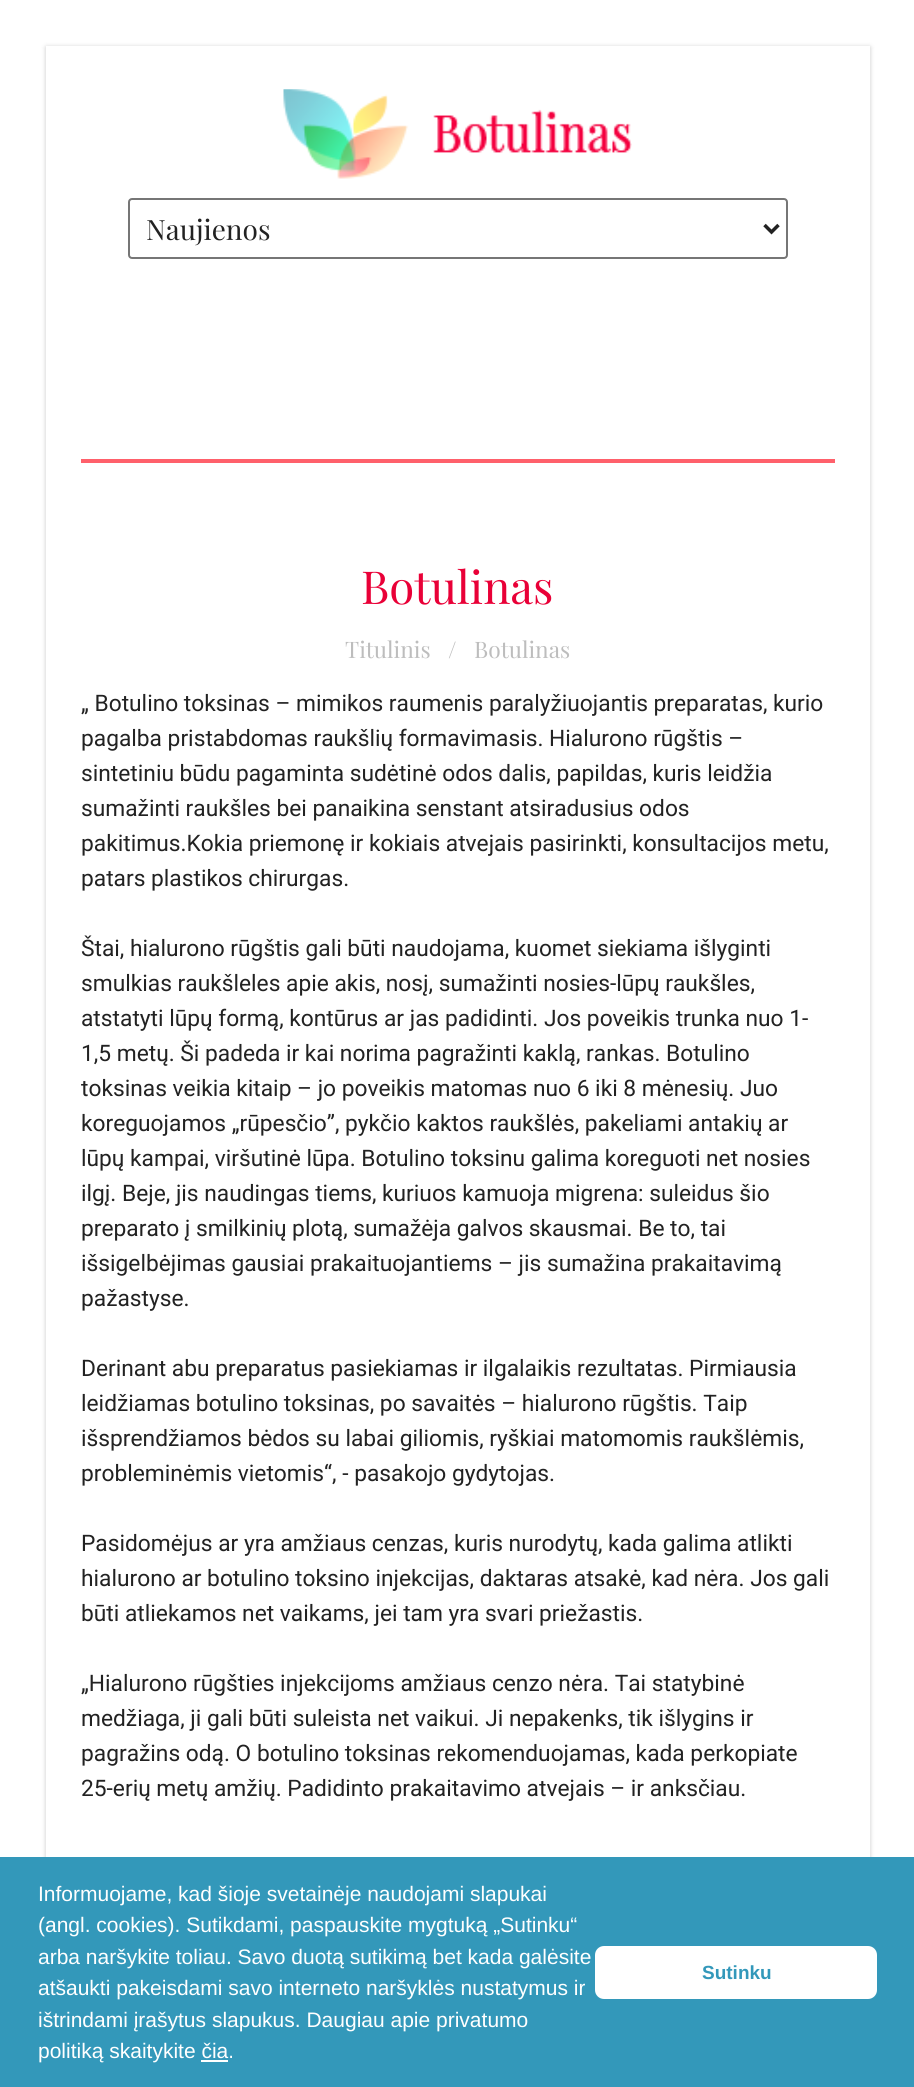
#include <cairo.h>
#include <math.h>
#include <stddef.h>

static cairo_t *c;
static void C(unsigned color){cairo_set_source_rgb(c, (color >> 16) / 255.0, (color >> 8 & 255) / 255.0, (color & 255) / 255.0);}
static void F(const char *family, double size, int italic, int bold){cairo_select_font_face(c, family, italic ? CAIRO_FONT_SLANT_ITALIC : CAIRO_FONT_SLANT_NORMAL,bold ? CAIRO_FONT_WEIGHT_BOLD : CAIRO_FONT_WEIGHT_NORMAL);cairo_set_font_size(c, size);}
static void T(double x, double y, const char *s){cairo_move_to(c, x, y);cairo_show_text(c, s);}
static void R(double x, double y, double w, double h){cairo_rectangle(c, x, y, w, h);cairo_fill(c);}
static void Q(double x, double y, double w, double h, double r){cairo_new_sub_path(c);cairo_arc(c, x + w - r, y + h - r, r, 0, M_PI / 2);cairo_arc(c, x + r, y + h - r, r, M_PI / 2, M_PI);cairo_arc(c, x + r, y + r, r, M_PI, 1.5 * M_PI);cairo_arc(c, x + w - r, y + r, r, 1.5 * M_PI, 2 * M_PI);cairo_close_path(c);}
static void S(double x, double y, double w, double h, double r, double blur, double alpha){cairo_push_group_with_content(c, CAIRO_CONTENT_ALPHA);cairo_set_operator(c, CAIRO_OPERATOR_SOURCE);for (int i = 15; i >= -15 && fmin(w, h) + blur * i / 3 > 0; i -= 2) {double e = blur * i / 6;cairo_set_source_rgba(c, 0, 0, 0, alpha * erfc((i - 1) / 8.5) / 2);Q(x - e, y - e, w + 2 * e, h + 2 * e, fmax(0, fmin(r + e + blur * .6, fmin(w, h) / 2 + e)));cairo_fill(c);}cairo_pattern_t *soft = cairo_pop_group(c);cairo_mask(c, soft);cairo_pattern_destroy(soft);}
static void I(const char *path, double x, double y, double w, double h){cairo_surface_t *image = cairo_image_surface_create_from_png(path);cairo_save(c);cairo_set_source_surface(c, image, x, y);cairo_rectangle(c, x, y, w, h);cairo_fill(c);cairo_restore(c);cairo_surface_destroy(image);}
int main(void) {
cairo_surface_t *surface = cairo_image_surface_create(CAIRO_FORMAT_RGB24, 914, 2087);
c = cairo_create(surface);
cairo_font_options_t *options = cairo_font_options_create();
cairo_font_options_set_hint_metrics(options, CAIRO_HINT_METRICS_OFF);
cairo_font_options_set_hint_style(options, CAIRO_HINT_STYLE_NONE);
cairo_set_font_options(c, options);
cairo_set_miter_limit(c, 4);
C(0xffffff);
cairo_paint(c);
C(0x000000);
S(46,47,824,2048,0,2.5,.21);
C(0xffffff);
R(46,46,824,1811);
I("1.png",283,89,349,90);
Q(129,199,658,59,3);
C(0x767676);
cairo_stroke(c);
cairo_new_path(c);
cairo_move_to(c,764.5,225);
cairo_line_to(c,771.5,232);
cairo_line_to(c,778.5,225);
C(0x222222);
cairo_set_line_width(c,3.5);
cairo_stroke(c);
F("Playfair Display",28,0,0);
T(146,240,"Naujienos");
C(0xff606b);
R(81,459,754,4);
F("Playfair Display",45.5,0,0);
C(0xe90037);
T(361,604,"Botulinas");
F("Playfair Display",22.75,0,0);
C(0xbdbdbd);
T(345,658,"Titulinis");
T(448,658,"/");
T(474,658,"Botulinas");
F("Roboto",22.75,0,0);
C(0x222222);
T(81,711,"„ Botulino toksinas – mimikos raumenis paralyžiuojantis preparatas, kurio");
T(81,746,"pagalba pristabdomas raukšlių formavimasis. Hialurono rūgštis –");
T(81,781,"sintetiniu būdu pagaminta sudėtinė odos dalis, papildas, kuris leidžia");
T(81,816,"sumažinti raukšles bei panaikina senstant atsiradusius odos");
T(81,851,"pakitimus.Kokia priemonę ir kokiais atvejais pasirinkti, konsultacijos metu,");
T(81,886,"patars plastikos chirurgas.");
T(81,956,"Štai, hialurono rūgštis gali būti naudojama, kuomet siekiama išlyginti");
T(81,991,"smulkias raukšleles apie akis, nosį, sumažinti nosies-lūpų raukšles,");
T(81,1026,"atstatyti lūpų formą, kontūrus ar jas padidinti. Jos poveikis trunka nuo 1-");
T(81,1061,"1,5 metų. Ši padeda ir kai norima pagražinti kaklą, rankas. Botulino");
T(81,1096,"toksinas veikia kitaip – jo poveikis matomas nuo 6 iki 8 mėnesių. Juo");
T(81,1131,"koreguojamos „rūpesčio”, pykčio kaktos raukšlės, pakeliami antakių ar");
T(81,1166,"lūpų kampai, viršutinė lūpa. Botulino toksinu galima koreguoti net nosies");
T(81,1201,"ilgį. Beje, jis naudingas tiems, kuriuos kamuoja migrena: suleidus šio");
T(81,1236,"preparato į smilkinių plotą, sumažėja galvos skausmai. Be to, tai");
T(81,1271,"išsigelbėjimas gausiai prakaituojantiems – jis sumažina prakaitavimą");
T(81,1306,"pažastyse.");
T(81,1376,"Derinant abu preparatus pasiekiamas ir ilgalaikis rezultatas. Pirmiausia");
T(81,1411,"leidžiamas botulino toksinas, po savaitės – hialurono rūgštis. Taip");
T(81,1446,"išsprendžiamos bėdos su labai giliomis, ryškiai matomomis raukšlėmis,");
T(81,1481,"probleminėmis vietomis“, - pasakojo gydytojas.");
T(81,1551,"Pasidomėjus ar yra amžiaus cenzas, kuris nurodytų, kada galima atlikti");
T(81,1586,"hialurono ar botulino toksino injekcijas, daktaras atsakė, kad nėra. Jos gali");
T(81,1621,"būti atliekamos net vaikams, jei tam yra svari priežastis.");
T(81,1691,"„Hialurono rūgšties injekcijoms amžiaus cenzo nėra. Tai statybinė");
T(81,1726,"medžiaga, ji gali būti suleista net vaikui. Ji nepakenks, tik išlygins ir");
T(81,1761,"pagražins odą. O botulino toksinas rekomenduojamas, kada perkopiate");
T(81,1796,"25-erių metų amžių. Padidinto prakaitavimo atvejais – ir anksčiau.");
C(0x3398ba);
R(0,1857,914,230);
F("Liberation Sans",21,0,0);
C(0xffffff);
T(38,1901,"Informuojame, kad šioje svetainėje naudojami slapukai");
T(38,1932,"(angl. cookies). Sutikdami, paspauskite mygtuką „Sutinku“");
T(38,1964,"arba naršykite toliau. Savo duotą sutikimą bet kada galėsite");
T(38,1995,"atšaukti pakeisdami savo interneto naršyklės nustatymus ir");
T(38,2027,"ištrindami įrašytus slapukus. Daugiau apie privatumo");
T(38,2058,"politiką skaitykite čia.");
R(201,2060,27,2);
Q(597,1948,278,49,7);
cairo_fill_preserve(c);
cairo_set_line_width(c,4);
cairo_stroke(c);
F("Liberation Sans",19,0,1);
C(0x3398ba);
T(702,1979,"Sutinku");
cairo_surface_write_to_png(surface, "o.png");
cairo_font_options_destroy(options);
cairo_destroy(c);
cairo_surface_destroy(surface);
return 0;
}
